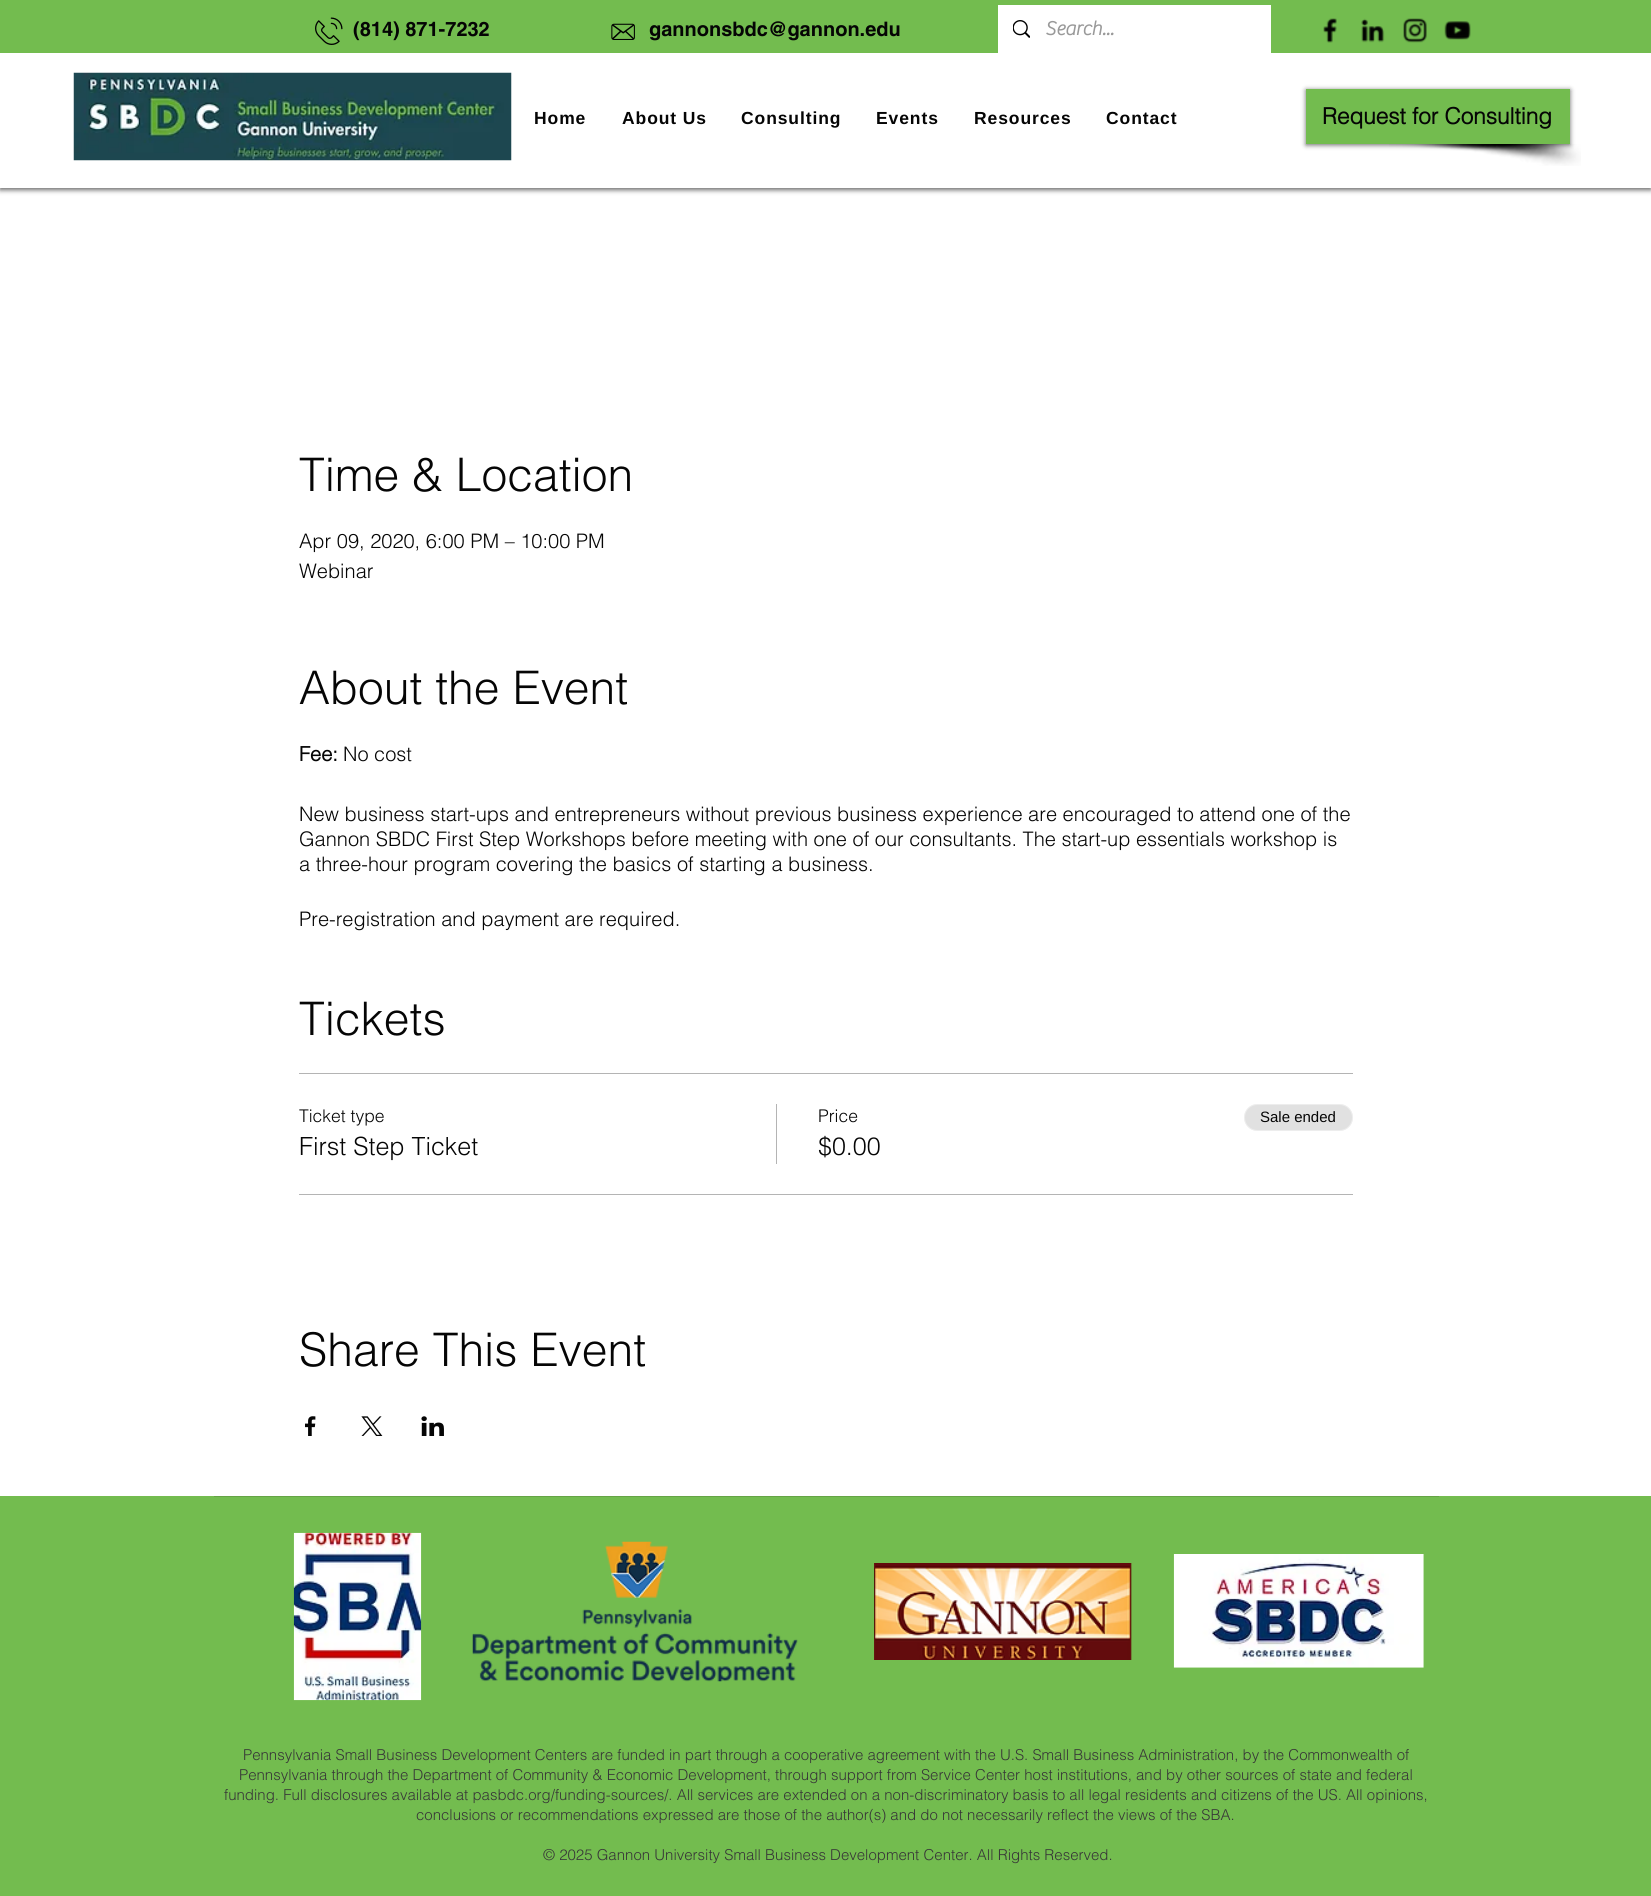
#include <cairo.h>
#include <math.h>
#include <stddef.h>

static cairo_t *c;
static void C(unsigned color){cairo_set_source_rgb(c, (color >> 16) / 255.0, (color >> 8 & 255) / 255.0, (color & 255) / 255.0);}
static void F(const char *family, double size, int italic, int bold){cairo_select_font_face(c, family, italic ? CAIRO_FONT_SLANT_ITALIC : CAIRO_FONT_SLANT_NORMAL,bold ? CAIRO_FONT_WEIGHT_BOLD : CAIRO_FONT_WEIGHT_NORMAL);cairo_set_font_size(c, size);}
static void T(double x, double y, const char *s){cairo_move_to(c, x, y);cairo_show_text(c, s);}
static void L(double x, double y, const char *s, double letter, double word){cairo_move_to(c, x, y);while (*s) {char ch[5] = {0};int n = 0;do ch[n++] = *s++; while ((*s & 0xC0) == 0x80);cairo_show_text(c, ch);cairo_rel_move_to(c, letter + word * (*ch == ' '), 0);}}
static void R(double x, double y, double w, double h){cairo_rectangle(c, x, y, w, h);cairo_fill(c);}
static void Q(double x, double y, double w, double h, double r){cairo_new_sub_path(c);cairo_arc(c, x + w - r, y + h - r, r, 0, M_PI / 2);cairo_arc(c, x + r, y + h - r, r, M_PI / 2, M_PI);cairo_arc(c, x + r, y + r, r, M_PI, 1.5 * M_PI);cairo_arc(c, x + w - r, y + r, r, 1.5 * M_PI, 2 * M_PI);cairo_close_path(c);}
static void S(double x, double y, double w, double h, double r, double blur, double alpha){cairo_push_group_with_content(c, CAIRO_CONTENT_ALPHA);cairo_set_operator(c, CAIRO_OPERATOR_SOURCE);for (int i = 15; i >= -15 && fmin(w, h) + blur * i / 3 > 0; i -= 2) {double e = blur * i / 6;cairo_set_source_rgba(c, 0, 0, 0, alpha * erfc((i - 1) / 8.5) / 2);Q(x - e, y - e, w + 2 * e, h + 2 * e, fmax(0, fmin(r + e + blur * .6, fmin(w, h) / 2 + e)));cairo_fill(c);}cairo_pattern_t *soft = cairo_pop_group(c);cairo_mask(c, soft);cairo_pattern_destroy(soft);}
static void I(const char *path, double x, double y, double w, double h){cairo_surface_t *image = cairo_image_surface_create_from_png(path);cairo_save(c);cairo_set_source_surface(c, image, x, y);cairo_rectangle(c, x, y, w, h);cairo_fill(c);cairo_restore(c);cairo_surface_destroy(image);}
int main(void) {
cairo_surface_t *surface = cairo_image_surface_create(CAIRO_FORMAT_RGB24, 1651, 1896);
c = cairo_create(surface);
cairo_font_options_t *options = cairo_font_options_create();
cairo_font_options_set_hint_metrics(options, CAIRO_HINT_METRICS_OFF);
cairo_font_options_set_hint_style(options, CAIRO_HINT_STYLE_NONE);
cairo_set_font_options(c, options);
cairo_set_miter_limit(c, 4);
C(0xffffff);
cairo_paint(c);
C(0x000000);
S(0,3,1651,187,0,2.5,.6);
C(0xffffff);
R(0,53,1651,135);
C(0x73bc4f);
R(0,0,1651,53);
I("1.png",315,17,28,28);
F("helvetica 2",20,0,1);
C(0x050505);
T(353,36,"(814) 871-7232");
I("2.png",611,23,24,17);
T(649,36,"gannonsbdc@gannon.edu");
C(0xffffff);
R(998,5,273,48);
I("3.png",1013,20,17,18);
F("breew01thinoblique",20,0,1);
C(0x999999);
T(1045,35,"Search...");
I("4.png",1323,18,14,25);
I("5.png",1361,18,24,25);
I("6.png",1403,18,24,25);
I("7.png",1444,21,27,19);
I("8.png",73,72,439,89);
F("Liberation Sans",17.5,0,1);
C(0x050505);
L(534,124,"Home",.9,0);
L(622,124,"About Us",.9,0);
L(741,124,"Consulting",.9,0);
L(876,124,"Events",.9,0);
L(974,124,"Resources",.9,0);
L(1106,124,"Contact",.9,0);
I("9.png",1389,144,192,22);
C(0x000000);
S(1306,90,264,55,0,2.5,.6);
C(0x73bc4f);
R(1306,89,264,55);
F("helvetica",22.5,0,1);
C(0x050505);
T(1322,124,"Request for Consulting");
F("helvetica Light",46.25,0,0);
T(299,491,"Time & Location");
F("helvetica Light",20,0,0);
T(299,548,"Apr 09, 2020, 6:00 PM – 10:00 PM");
T(299,578,"Webinar");
F("helvetica Light",46.25,0,0);
T(299,704,"About the Event");
F("helvetica",20,0,1);
T(299,761,"Fee:");
F("helvetica Light",20,0,0);
T(343,761,"No cost");
T(299,821,"New business start-ups and entrepreneurs without previous business experience are encouraged to attend one of the");
T(299,846,"Gannon SBDC First Step Workshops before meeting with one of our consultants. The start-up essentials workshop is");
T(299,871,"a three-hour program covering the basics of starting a business.");
T(299,926,"Pre-registration and payment are required.");
F("helvetica Light",46.25,0,0);
T(299,1035,"Tickets");
C(0xb4b4b4);
R(299,1073,1054,1);
R(299,1194,1054,1);
F("helvetica Light",17.5,0,0);
C(0x050505);
T(299,1122,"Ticket type");
F("helvetica Light",25,0,0);
T(299,1155,"First Step Ticket");
C(0xb4b4b4);
R(776,1104,1,60);
F("helvetica Light",17.5,0,0);
C(0x050505);
T(818,1122,"Price");
F("helvetica Light",25,0,0);
T(818,1155,"$0.00");
C(0xe1e1e1);
Q(1244,1104,109,27,13.5);
cairo_fill(c);
Q(1244.5,1104.5,108,26,13);
cairo_set_source_rgba(c,1,1,1,0.4);
cairo_set_line_width(c,1);
cairo_stroke(c);
F("Liberation Sans",15,0,0);
C(0x050505);
T(1260,1122,"Sale ended");
F("helvetica Light",46.25,0,0);
T(299,1366,"Share This Event");
I("10.png",305,1416,11,20);
I("11.png",361,1416,22,20);
I("12.png",421,1416,23,20);
C(0x73bc4f);
R(0,1496,1651,400);
C(0x65a445);
R(214,1496,1225,1);
I("13.png",293,1532,129,169);
I("14.png",472,1541,326,141);
I("15.png",874,1563,258,97);
I("16.png",1173,1554,251,114);
F("helvetica Light",15,0,0);
C(0x373737);
T(243,1760,"Pennsylvania Small Business Development Centers are funded in part through a cooperative agreement with the U.S. Small Business Administration, by the Commonwealth of");
T(239,1780,"Pennsylvania through the Department of Community & Economic Development, through support from Service Center host institutions, and by other sources of state and federal");
T(224,1800,"funding. Full disclosures available at pasbdc.org/funding-sources/. All services are extended on a non-discriminatory basis to all legal residents and citizens of the US. All opinions,");
T(416,1820,"conclusions or recommendations expressed are those of the author(s) and do not necessarily reflect the views of the SBA.");
T(543,1860,"© 2025 Gannon University Small Business Development Center. All Rights Reserved.");
cairo_surface_write_to_png(surface, "o.png");
cairo_font_options_destroy(options);
cairo_destroy(c);
cairo_surface_destroy(surface);
return 0;
}
